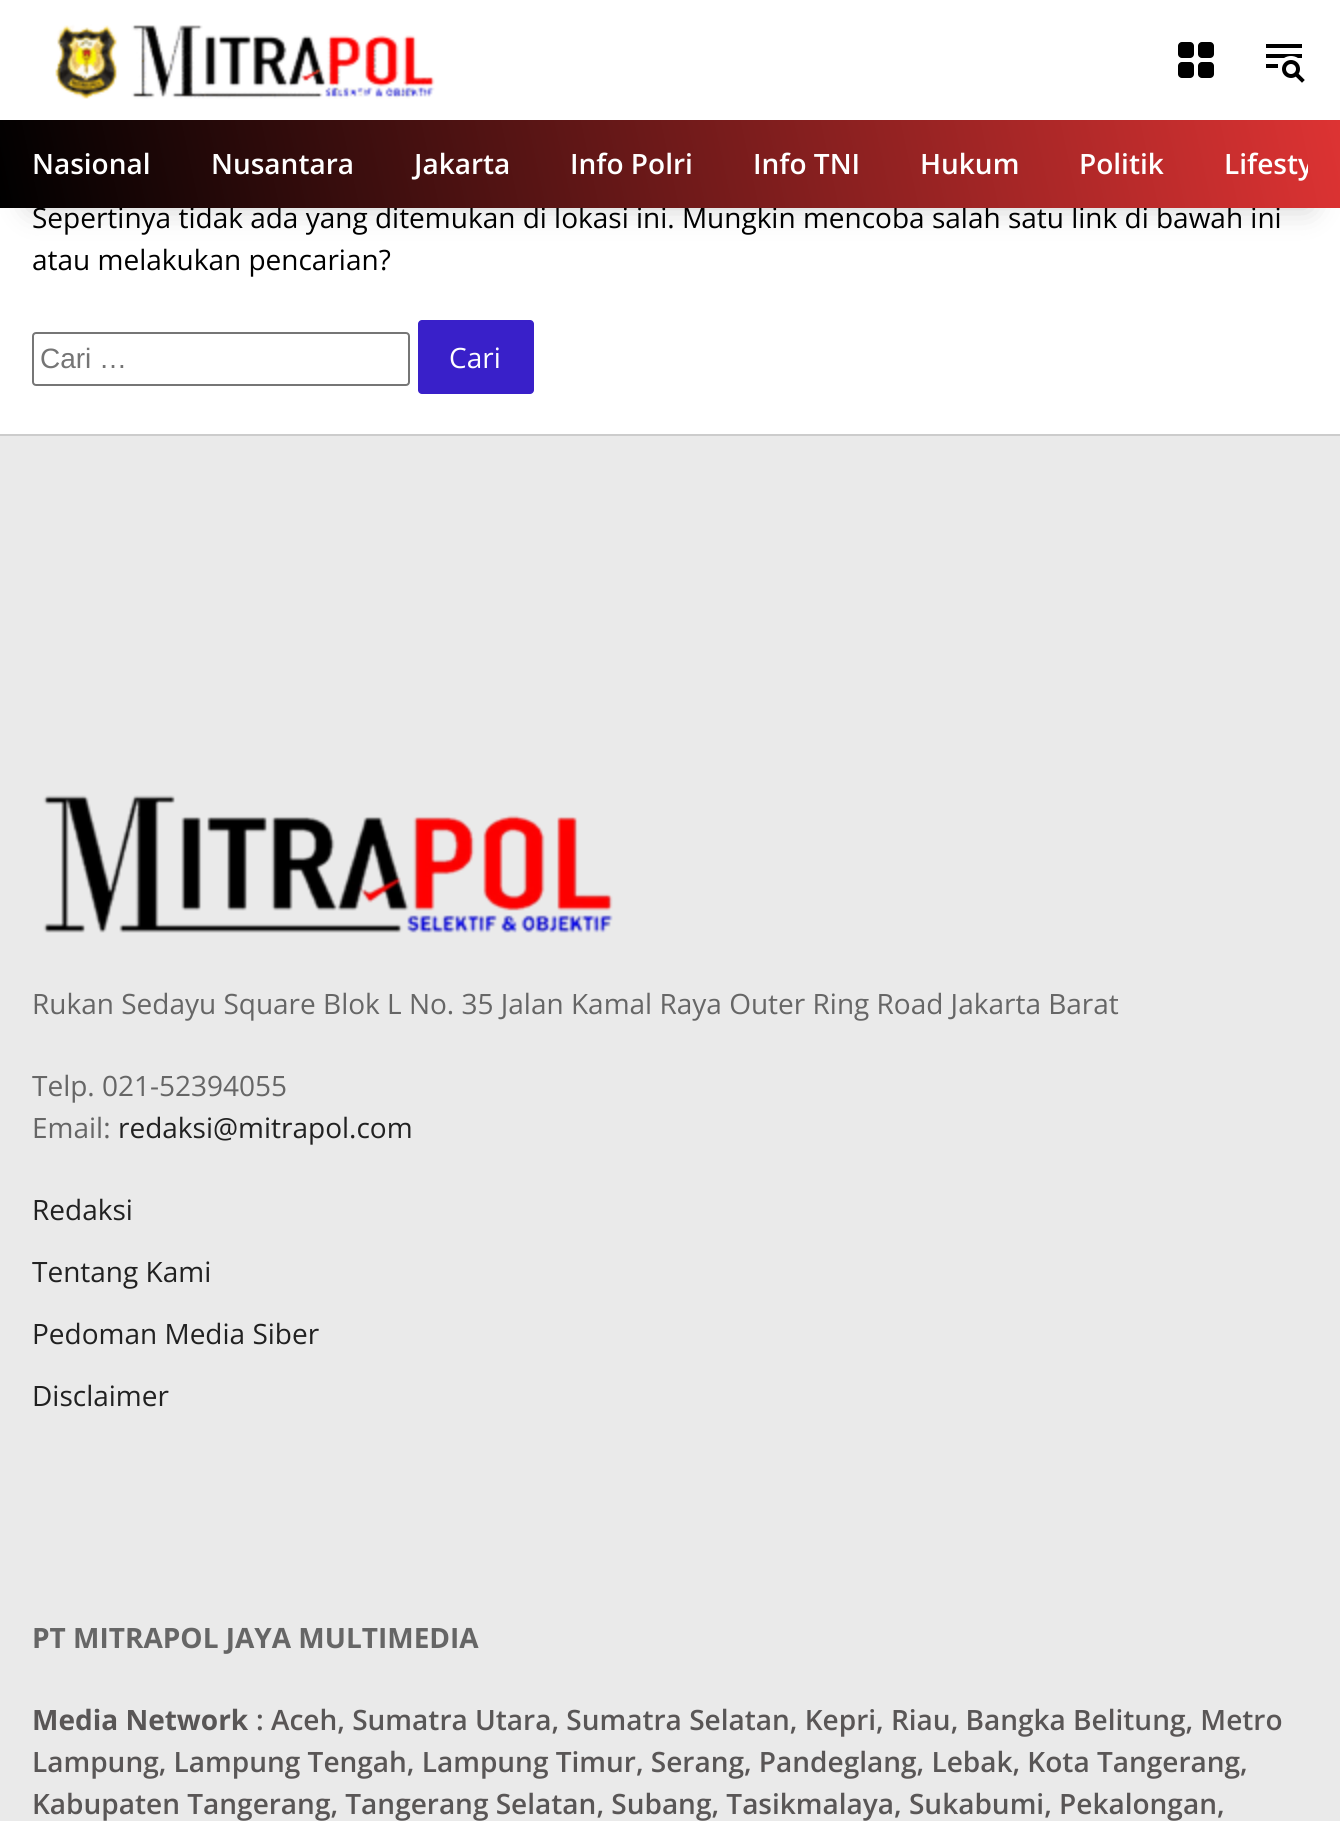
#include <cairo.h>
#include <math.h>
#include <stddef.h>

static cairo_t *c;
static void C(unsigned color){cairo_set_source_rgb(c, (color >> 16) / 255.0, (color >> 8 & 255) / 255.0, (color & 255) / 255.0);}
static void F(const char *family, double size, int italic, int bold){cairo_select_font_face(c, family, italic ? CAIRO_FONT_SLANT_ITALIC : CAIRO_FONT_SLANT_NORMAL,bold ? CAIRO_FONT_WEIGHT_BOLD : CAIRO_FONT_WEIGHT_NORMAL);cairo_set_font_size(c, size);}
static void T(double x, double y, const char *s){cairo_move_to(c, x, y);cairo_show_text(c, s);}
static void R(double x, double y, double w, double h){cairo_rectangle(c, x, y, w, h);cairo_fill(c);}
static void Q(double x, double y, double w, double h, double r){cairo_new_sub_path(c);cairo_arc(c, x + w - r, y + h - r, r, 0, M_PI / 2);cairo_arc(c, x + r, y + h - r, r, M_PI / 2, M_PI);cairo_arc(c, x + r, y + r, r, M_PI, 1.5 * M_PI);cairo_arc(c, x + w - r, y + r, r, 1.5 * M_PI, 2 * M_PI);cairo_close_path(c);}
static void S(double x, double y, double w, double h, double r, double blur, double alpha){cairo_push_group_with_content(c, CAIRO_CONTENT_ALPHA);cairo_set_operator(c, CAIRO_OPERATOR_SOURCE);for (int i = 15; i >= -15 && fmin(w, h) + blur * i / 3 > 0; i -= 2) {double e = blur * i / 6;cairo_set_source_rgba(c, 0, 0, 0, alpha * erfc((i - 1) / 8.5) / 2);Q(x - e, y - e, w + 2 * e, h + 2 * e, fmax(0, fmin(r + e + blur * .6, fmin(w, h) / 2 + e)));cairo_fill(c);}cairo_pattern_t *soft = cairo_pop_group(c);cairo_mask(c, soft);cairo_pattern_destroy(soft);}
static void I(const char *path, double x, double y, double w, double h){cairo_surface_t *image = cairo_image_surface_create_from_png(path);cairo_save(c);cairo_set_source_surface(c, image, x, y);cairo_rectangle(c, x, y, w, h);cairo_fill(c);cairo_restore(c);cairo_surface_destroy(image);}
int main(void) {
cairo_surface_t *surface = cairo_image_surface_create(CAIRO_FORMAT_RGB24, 1340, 1821);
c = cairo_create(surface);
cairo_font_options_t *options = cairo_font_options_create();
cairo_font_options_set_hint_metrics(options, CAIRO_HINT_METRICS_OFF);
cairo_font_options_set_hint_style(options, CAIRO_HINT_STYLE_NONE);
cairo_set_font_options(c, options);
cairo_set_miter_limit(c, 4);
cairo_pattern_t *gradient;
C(0xffffff);
cairo_paint(c);
I("1.png",55,24,380,75);
I("2.png",1178,42,36,36);
I("3.png",1266,44,39,39);
C(0x000000);
S(30,180,1280,28,0,15,.2);
F("Open Sans",28,0,0);
C(0x000000);
T(32,228,"Sepertinya tidak ada yang ditemukan di lokasi ini. Mungkin mencoba salah satu link di bawah ini");
gradient = cairo_pattern_create_linear(20,302,1320,26);
cairo_pattern_add_color_stop_rgba(gradient,0,0,0,0,1);
cairo_pattern_add_color_stop_rgba(gradient,1,0.867,0.2,0.2,1);
cairo_set_source(c,gradient);
cairo_pattern_destroy(gradient);
R(0,120,1340,88);
F("Open Sans SemiBold",28,0,0);
C(0xffffff);
T(32,174,"Nasional");
T(211,174,"Nusantara");
T(414,174,"Jakarta");
T(570,174,"Info Polri");
T(753,174,"Info TNI");
T(920,174,"Hukum");
T(1079,174,"Politik");
cairo_save(c);
cairo_rectangle(c,32,120,1276,88);
cairo_clip(c);
T(1224,174,"Lifesty");
cairo_restore(c);
F("Open Sans",28,0,0);
C(0x000000);
T(32,270,"atau melakukan pencarian?");
Q(33,333,376,52,3);
C(0x767676);
cairo_stroke(c);
F("Liberation Sans",28,0,0);
C(0x757575);
T(40,368,"Cari …");
C(0x3920c9);
Q(418,320,116,74,4);
cairo_fill(c);
F("Open Sans",28,0,0);
C(0xffffff);
T(449,368,"Cari");
C(0xeaeaea);
R(0,436,1340,1385);
C(0xcccccc);
R(0,434,1340,2);
I("4.png",43,795,570,138);
C(0x666666);
T(32,1014,"Rukan Sedayu Square Blok L No. 35 Jalan Kamal Raya Outer Ring Road Jakarta Barat");
T(32,1096,"Telp. 021-52394055");
T(32,1138,"Email:");
C(0x212121);
T(118,1138,"redaksi@mitrapol.com");
T(32,1220,"Redaksi");
T(32,1282,"Tentang Kami");
T(32,1344,"Pedoman Media Siber");
T(32,1406,"Disclaimer");
F("Open Sans",28,0,1);
C(0x666666);
T(32,1648,"PT MITRAPOL JAYA MULTIMEDIA");
C(0x595656);
T(32,1730,"Media Network");
F("Open Sans SemiBold",28,0,0);
T(256,1730,": Aceh, Sumatra Utara, Sumatra Selatan, Kepri, Riau, Bangka Belitung, Metro");
T(32,1772,"Lampung, Lampung Tengah, Lampung Timur, Serang, Pandeglang, Lebak, Kota Tangerang,");
T(32,1814,"Kabupaten Tangerang, Tangerang Selatan, Subang, Tasikmalaya, Sukabumi, Pekalongan,");
cairo_surface_write_to_png(surface, "o.png");
cairo_font_options_destroy(options);
cairo_destroy(c);
cairo_surface_destroy(surface);
return 0;
}
